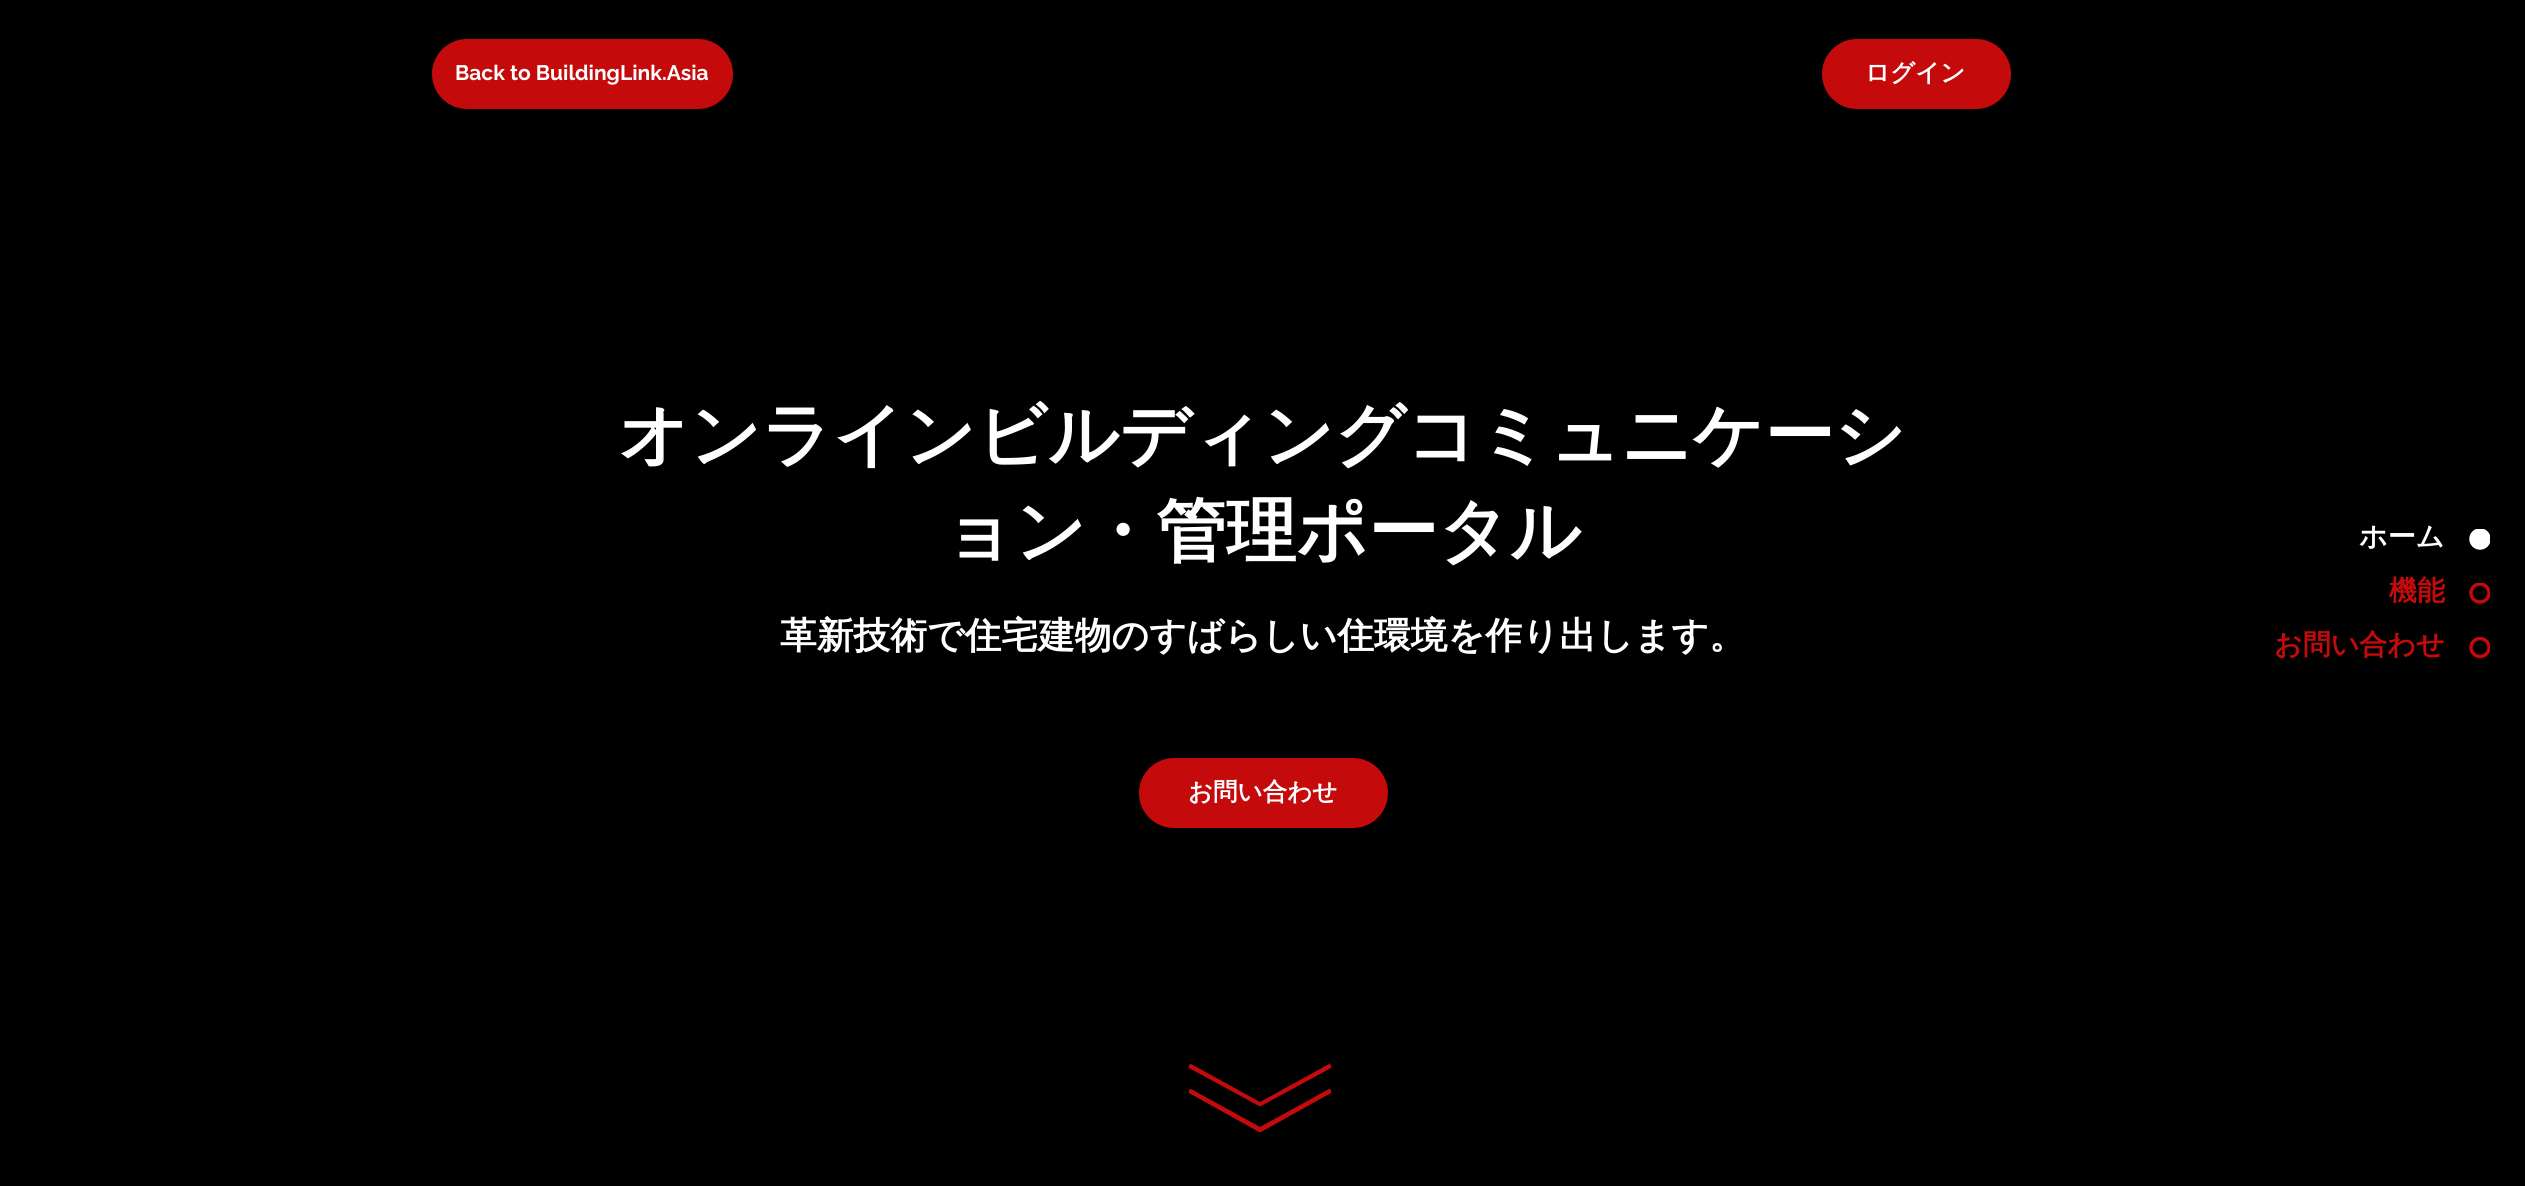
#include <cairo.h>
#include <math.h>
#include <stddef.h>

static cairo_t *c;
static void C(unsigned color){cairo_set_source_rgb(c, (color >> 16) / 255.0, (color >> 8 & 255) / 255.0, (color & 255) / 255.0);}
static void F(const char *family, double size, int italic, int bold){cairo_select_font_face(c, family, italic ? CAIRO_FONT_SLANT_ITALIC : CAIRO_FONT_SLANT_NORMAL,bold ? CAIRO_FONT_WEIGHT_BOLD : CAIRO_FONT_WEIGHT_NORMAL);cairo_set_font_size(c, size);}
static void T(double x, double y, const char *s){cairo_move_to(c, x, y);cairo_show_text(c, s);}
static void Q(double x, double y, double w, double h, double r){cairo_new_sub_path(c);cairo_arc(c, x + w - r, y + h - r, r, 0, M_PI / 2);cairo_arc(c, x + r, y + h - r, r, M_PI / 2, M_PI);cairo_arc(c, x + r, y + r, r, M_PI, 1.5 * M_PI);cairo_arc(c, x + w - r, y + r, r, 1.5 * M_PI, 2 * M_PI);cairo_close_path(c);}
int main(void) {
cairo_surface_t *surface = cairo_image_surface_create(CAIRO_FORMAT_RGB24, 2525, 1186);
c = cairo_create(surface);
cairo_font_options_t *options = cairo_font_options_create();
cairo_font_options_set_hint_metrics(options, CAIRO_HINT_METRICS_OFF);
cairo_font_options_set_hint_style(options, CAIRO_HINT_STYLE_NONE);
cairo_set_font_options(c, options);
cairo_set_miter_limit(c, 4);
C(0x000000);
cairo_paint(c);
C(0xc40a0a);
Q(432,39,301,70,35);
cairo_fill(c);
F("Raleway",21,0,1);
C(0xffffff);
T(455,80,"Back to BuildingLink.Asia");
F("WenQuanYi Zen Hei",70,0,1);
T(618,459,"オンラインビルディングコミュニケーシ");
T(943,555,"ョン・管理ポータル");
F("WenQuanYi Zen Hei",36.75,0,1);
T(780,648,"革新技術で住宅建物のすばらしい住環境を作り出します。");
C(0xc40a0a);
Q(1139,758,249,70,35);
cairo_fill(c);
F("WenQuanYi Zen Hei",24.5,0,1);
C(0xffffff);
T(1188,800,"お問い合わせ");
C(0xc40a0a);
cairo_new_path(c);
cairo_move_to(c,1191,1089);
cairo_line_to(c,1260,1127);
cairo_line_to(c,1329,1089);
cairo_curve_to(c,1331,1089,1332,1092,1331,1093);
cairo_line_to(c,1261,1132);
cairo_line_to(c,1259,1132);
cairo_line_to(c,1189,1093);
cairo_curve_to(c,1188,1092,1189,1089,1191,1089);
cairo_close_path(c);
cairo_fill(c);
cairo_new_path(c);
cairo_move_to(c,1191,1064);
cairo_line_to(c,1260,1102);
cairo_line_to(c,1329,1064);
cairo_curve_to(c,1331,1064,1332,1067,1331,1068);
cairo_line_to(c,1261,1106);
cairo_line_to(c,1259,1106);
cairo_line_to(c,1189,1068);
cairo_curve_to(c,1188,1067,1189,1064,1191,1064);
cairo_close_path(c);
cairo_fill(c);
Q(1822,39,189,70,35);
cairo_fill(c);
C(0xffffff);
T(1865,81,"ログイン");
F("WenQuanYi Zen Hei",28,0,1);
T(2359,546,"ホーム");
cairo_new_path(c);
cairo_arc(c,2480,539,9,0,2 * M_PI);
cairo_fill(c);
cairo_save(c);
cairo_rectangle(c,2469,529,21,21);
cairo_clip(c);
cairo_arc(c,2480,539,9,0,2 * M_PI);
cairo_set_line_width(c,3.5);
cairo_stroke(c);
cairo_restore(c);
C(0xc40a0a);
T(2389,600,"機能");
cairo_save(c);
cairo_rectangle(c,2469,583,21,21);
cairo_clip(c);
cairo_arc(c,2480,593,9,0,2 * M_PI);
cairo_set_line_width(c,3.5);
cairo_stroke(c);
cairo_restore(c);
T(2274,654,"お問い合わせ");
cairo_save(c);
cairo_rectangle(c,2469,637,21,21);
cairo_clip(c);
cairo_arc(c,2480,647.5,9,0,2 * M_PI);
cairo_set_line_width(c,3.5);
cairo_stroke(c);
cairo_restore(c);
cairo_surface_write_to_png(surface, "o.png");
cairo_font_options_destroy(options);
cairo_destroy(c);
cairo_surface_destroy(surface);
return 0;
}
